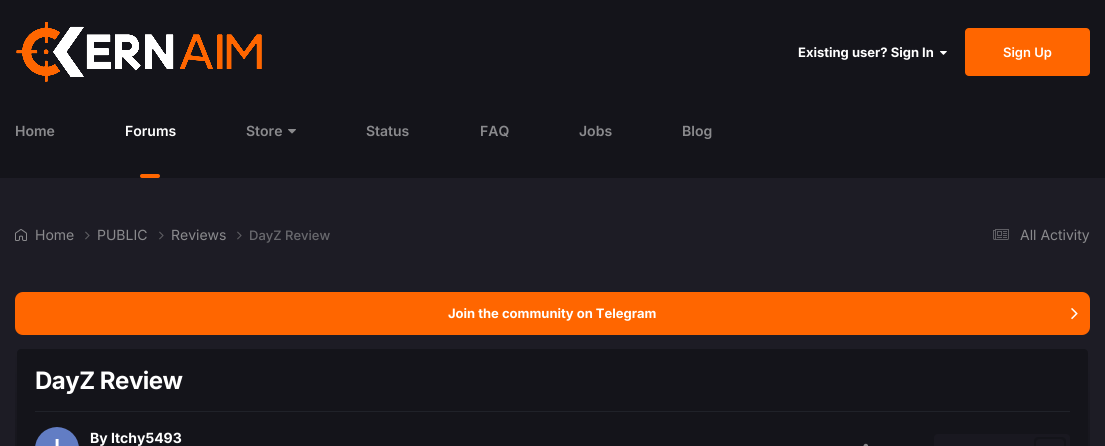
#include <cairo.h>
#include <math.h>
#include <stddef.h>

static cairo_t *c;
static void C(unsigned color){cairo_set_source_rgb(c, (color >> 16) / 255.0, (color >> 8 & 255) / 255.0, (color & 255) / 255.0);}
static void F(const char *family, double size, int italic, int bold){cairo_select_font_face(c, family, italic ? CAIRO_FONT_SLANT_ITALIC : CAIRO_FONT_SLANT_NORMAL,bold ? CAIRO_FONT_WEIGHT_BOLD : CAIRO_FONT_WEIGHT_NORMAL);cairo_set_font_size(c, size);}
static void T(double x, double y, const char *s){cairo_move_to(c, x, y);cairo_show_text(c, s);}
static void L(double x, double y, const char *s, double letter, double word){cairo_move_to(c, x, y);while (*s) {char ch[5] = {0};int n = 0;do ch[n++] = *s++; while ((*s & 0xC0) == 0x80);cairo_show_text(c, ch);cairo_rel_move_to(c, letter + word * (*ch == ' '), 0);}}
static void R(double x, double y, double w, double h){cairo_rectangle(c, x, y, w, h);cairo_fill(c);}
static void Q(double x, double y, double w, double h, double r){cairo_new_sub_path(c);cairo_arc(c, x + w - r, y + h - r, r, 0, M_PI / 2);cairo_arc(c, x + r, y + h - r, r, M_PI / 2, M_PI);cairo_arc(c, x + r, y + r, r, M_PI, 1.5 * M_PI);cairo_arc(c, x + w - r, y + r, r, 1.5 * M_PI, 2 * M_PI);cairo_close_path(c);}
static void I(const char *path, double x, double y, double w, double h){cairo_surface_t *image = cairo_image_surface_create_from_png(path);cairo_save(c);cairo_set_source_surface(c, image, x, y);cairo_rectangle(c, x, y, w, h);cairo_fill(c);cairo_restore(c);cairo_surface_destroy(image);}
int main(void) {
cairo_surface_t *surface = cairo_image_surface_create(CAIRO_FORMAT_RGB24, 1105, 446);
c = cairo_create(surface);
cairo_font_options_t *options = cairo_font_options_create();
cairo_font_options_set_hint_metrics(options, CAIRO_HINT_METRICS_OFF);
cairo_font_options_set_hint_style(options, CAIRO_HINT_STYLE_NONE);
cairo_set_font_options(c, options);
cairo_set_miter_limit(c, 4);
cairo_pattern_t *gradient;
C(0x1d1c25);
cairo_paint(c);
C(0x14141a);
R(0,0,1105,178);
I("1.png",16,22,246,60);
F("Inter",13,0,1);
C(0xffffff);
T(798,57,"Existing user? Sign In");
I("2.png",940,51,7,4);
C(0xff6600);
Q(965,28,125,48,4);
cairo_fill(c);
F("Inter SemiBold",13,0,0);
C(0xffffff);
T(1003,57,"Sign Up");
F("Inter SemiBold",14,0,0);
C(0x8a8a8d);
T(15,136,"Home");
C(0xffffff);
T(125,136,"Forums");
C(0xff6600);
Q(140,174,20,4,2);
cairo_fill(c);
C(0x8a8a8d);
T(246,136,"Store");
I("3.png",288,129,8,5);
T(366,136,"Status");
T(480,136,"FAQ");
T(579,136,"Jobs");
T(682,136,"Blog");
I("4.png",15,229,12,12);
F("Inter",14,0,0);
T(35,240,"Home");
I("5.png",85,231,5,9);
T(97,240,"PUBLIC");
I("5.png",159,231,5,9);
T(171,240,"Reviews");
I("5.png",237,231,5,9);
F("Inter Medium",13,0,0);
C(0x69696e);
T(249,240,"DayZ Review");
I("6.png",993,229,16,11);
F("Inter",14,0,0);
C(0x8a8a8d);
T(1020,240,"All Activity");
C(0xff6600);
Q(15,292,1075,43,8);
cairo_fill(c);
F("Inter",13,0,1);
C(0xffffff);
T(448,318,"Join the community on Telegram");
I("7.png",1071,308,7,12);
gradient = cairo_pattern_create_linear(553,347,553,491);
cairo_pattern_add_color_stop_rgba(gradient,0,0.114,0.11,0.145,1);
cairo_pattern_add_color_stop_rgba(gradient,1,0.078,0.078,0.102,1);
cairo_set_source(c,gradient);
cairo_pattern_destroy(gradient);
Q(15,347,1075,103,4);
cairo_fill(c);
C(0x14141a);
Q(17,349,1071,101,4);
cairo_fill(c);
F("Inter",24,0,1);
C(0xffffff);
L(35,389,"DayZ Review",-.5,0);
C(0x202229);
R(35,411,1035,1);
I("8.png",35,427,44,19);
F("Inter",14,0,1);
C(0xffffff);
T(90,443,"By Itchy5493");
I("9.png",863,443,6,3);
C(0x191820);
Q(934,434,136,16,4);
cairo_fill(c);
C(0x14141a);
Q(1034,437,32,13,4);
cairo_fill(c);
C(0x191820);
Q(1036,439,28,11,4);
cairo_fill(c);
cairo_surface_write_to_png(surface, "o.png");
cairo_font_options_destroy(options);
cairo_destroy(c);
cairo_surface_destroy(surface);
return 0;
}
